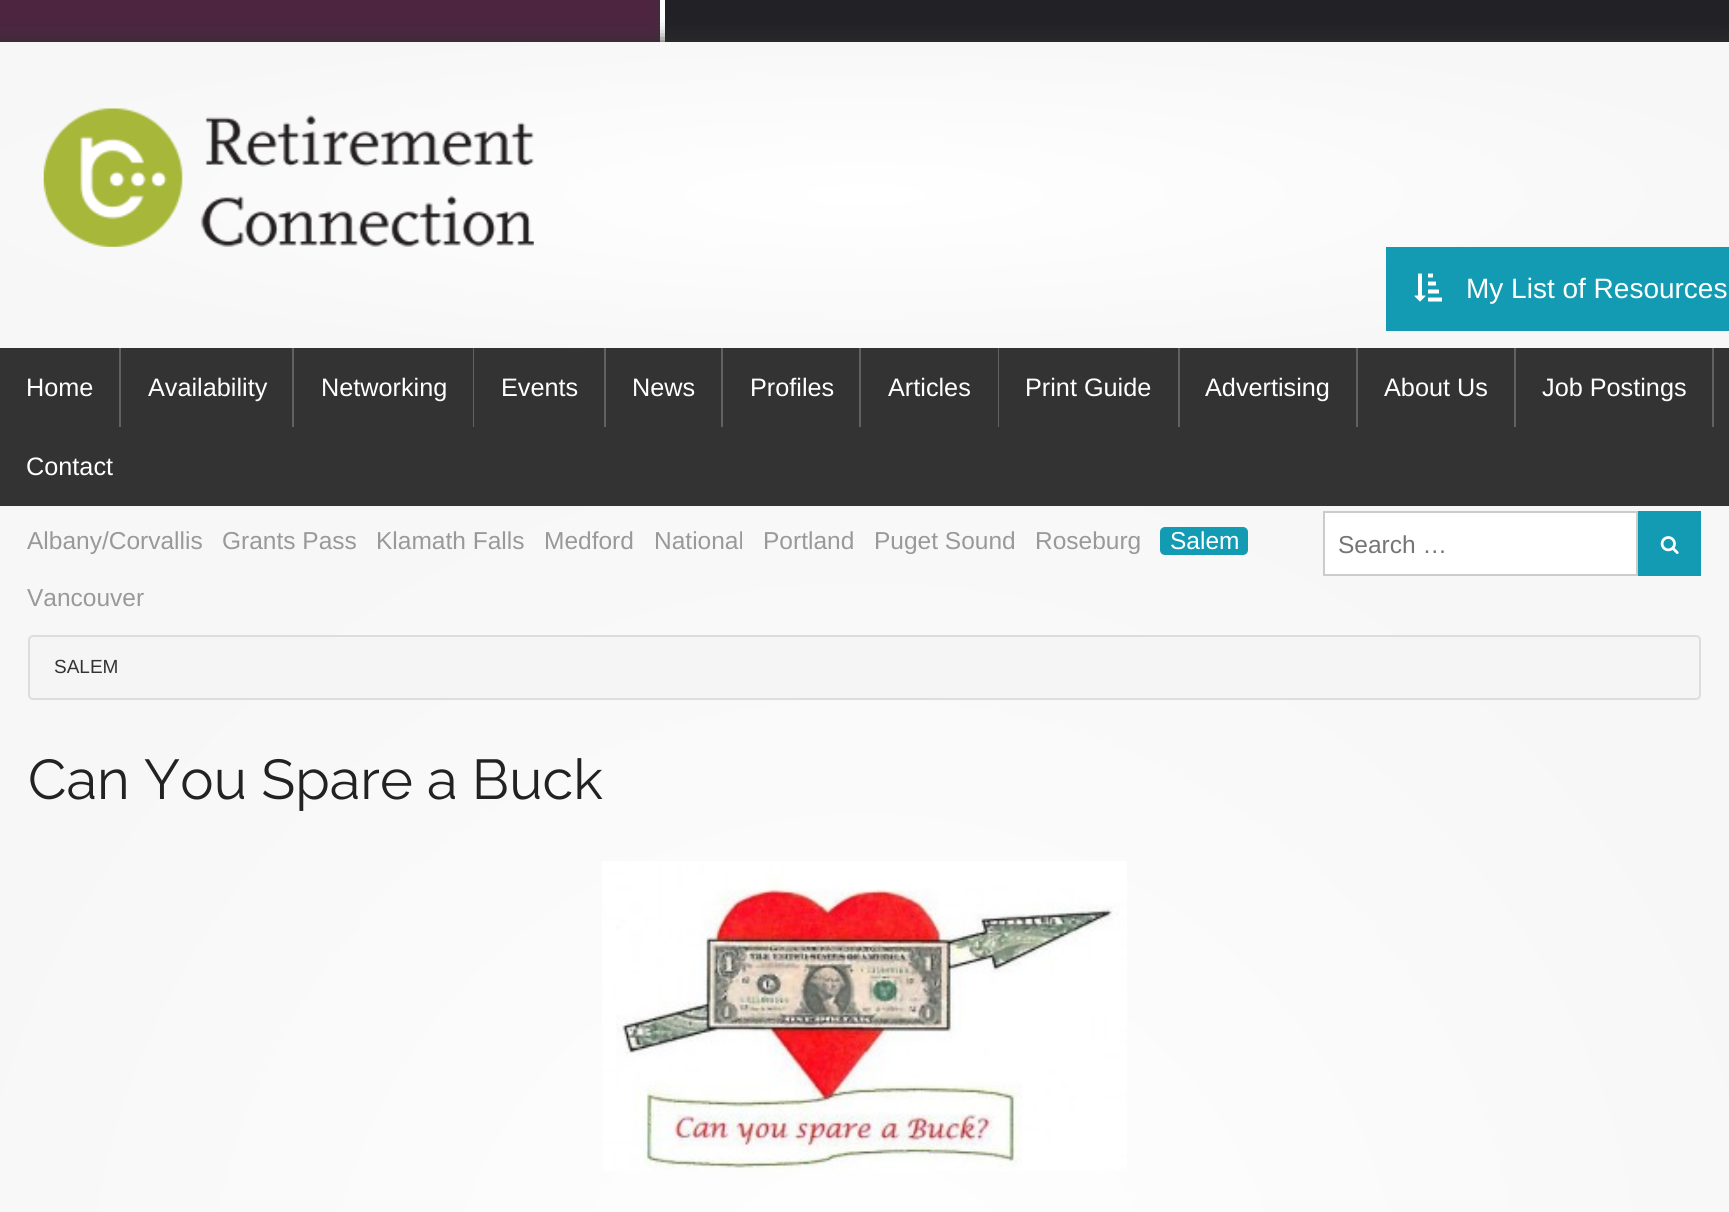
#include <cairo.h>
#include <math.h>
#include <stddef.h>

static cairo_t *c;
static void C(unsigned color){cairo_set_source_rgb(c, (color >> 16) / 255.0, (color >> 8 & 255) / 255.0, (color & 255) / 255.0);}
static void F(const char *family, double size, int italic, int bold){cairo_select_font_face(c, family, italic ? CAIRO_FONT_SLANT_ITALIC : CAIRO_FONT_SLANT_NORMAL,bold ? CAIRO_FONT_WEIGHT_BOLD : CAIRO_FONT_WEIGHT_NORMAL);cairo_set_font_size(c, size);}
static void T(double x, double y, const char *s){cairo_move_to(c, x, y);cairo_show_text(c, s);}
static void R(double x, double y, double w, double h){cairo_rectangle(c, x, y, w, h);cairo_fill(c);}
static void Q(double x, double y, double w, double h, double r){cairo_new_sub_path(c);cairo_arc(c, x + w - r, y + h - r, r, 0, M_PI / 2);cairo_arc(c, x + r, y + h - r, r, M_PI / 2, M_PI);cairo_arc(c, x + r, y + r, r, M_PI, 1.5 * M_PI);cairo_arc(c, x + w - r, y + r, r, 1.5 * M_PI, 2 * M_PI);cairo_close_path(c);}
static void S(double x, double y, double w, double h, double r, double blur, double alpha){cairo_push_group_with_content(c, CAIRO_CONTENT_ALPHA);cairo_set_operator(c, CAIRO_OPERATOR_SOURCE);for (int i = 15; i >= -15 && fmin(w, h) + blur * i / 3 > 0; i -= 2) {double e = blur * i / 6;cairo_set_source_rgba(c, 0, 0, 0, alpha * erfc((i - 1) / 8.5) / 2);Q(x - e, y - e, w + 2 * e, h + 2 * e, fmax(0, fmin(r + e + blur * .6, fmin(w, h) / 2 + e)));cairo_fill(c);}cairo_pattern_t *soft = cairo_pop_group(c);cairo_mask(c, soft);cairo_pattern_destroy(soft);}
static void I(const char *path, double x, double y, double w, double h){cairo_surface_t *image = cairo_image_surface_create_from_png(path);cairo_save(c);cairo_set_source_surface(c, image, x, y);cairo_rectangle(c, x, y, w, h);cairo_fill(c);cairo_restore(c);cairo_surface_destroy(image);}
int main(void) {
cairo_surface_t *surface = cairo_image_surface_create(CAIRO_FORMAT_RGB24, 1729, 1212);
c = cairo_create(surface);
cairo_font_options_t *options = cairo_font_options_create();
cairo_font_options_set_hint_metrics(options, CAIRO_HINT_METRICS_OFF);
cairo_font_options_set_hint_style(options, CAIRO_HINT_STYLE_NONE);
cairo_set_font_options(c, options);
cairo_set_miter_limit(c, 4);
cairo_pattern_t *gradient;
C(0x4d2541);
cairo_paint(c);
C(0x323232);
S(660,7,1069,308,0,4.5,.75);
C(0x222226);
R(665,0,1064,42);
C(0xffffff);
R(660,0,5,42);
C(0x323232);
S(0,42,1729,306,0,10.5,1);
gradient = cairo_pattern_create_radial(0,0,0,0,0,1);
cairo_pattern_set_matrix(gradient, &(cairo_matrix_t){1.0 / 1223, 0, 0, 1.0 / 217, -1.0 * 865 / 1223, -1.0 * 195 / 217});
cairo_pattern_add_color_stop_rgba(gradient,0,1,1,1,1);
cairo_pattern_add_color_stop_rgba(gradient,.78,0.969,0.969,0.969,1);
cairo_pattern_add_color_stop_rgba(gradient,1,0.969,0.969,0.969,1);
cairo_set_source(c,gradient);
cairo_pattern_destroy(gradient);
R(0,42,1729,306);
I("1.png",43,108,491,139);
C(0x149bb4);
R(1386,247,343,84);
I("2.png",1414,273,28,29);
F("Liberation Sans",28,0,0);
C(0xffffff);
T(1466,298,"My List of Resources");
C(0x333333);
R(0,348,1729,158);
F("Liberation Sans",25.25,0,0);
C(0xffffff);
T(26,396,"Home");
C(0x616161);
R(119,348,2,79);
C(0xffffff);
T(148,396,"Availability");
C(0x616161);
R(292,348,2,79);
C(0xffffff);
T(321,396,"Networking");
C(0x616161);
R(473,348,1,79);
C(0xffffff);
T(501,396,"Events");
C(0x616161);
R(604,348,2,79);
C(0xffffff);
T(632,396,"News");
C(0x616161);
R(721,348,2,79);
C(0xffffff);
T(750,396,"Profiles");
C(0x616161);
R(859,348,2,79);
C(0xffffff);
T(888,396,"Articles");
C(0x616161);
R(998,348,1,79);
C(0xffffff);
T(1025,396,"Print Guide");
C(0x616161);
R(1178,348,2,79);
C(0xffffff);
T(1205,396,"Advertising");
C(0x616161);
R(1356,348,2,79);
C(0xffffff);
T(1384,396,"About Us");
C(0x616161);
R(1514,348,2,79);
C(0xffffff);
T(1542,396,"Job Postings");
C(0x616161);
R(1712,348,2,79);
C(0xffffff);
T(26,475,"Contact");
gradient = cairo_pattern_create_radial(0,0,0,0,0,1);
cairo_pattern_set_matrix(gradient, &(cairo_matrix_t){1.0 / 1223, 0, 0, 1.0 / 1172, -1.0 * 865 / 1223, -1.0 * 1334 / 1172});
cairo_pattern_add_color_stop_rgba(gradient,0,1,1,1,1);
cairo_pattern_add_color_stop_rgba(gradient,.78,0.969,0.969,0.969,1);
cairo_pattern_add_color_stop_rgba(gradient,1,0.969,0.969,0.969,1);
cairo_set_source(c,gradient);
cairo_pattern_destroy(gradient);
R(0,506,1729,706);
F("Liberation Sans",24.5,0,0);
C(0x999999);
T(27,549,"Albany/Corvallis");
T(222,549,"Grants Pass");
T(376,549,"Klamath Falls");
T(544,549,"Medford");
T(654,549,"National");
T(763,549,"Portland");
T(874,549,"Puget Sound");
T(1035,549,"Roseburg");
C(0x149bb4);
Q(1160,527,88,28,5);
cairo_fill(c);
C(0xffffff);
T(1170,549,"Salem");
C(0x999999);
T(27,606,"Vancouver");
C(0xffffff);
cairo_rectangle(c,1324,512,313,63);
cairo_fill_preserve(c);
C(0xcccccc);
cairo_stroke(c);
C(0x757575);
T(1338,553,"Search …");
C(0x149bb4);
R(1638,511,63,65);
I("3.png",1660,536,19,18);
C(0xf5f5f5);
Q(29,636,1671,63,4);
cairo_fill_preserve(c);
C(0xdddddd);
cairo_stroke(c);
F("Liberation Sans",19,0,0);
C(0x333333);
T(54,673,"SALEM");
F("Raleway Thin",56,0,0);
C(0x222222);
T(28,799,"Can You Spare a Buck");
I("4.png",602,861,525,310);
cairo_surface_write_to_png(surface, "o.png");
cairo_font_options_destroy(options);
cairo_destroy(c);
cairo_surface_destroy(surface);
return 0;
}
